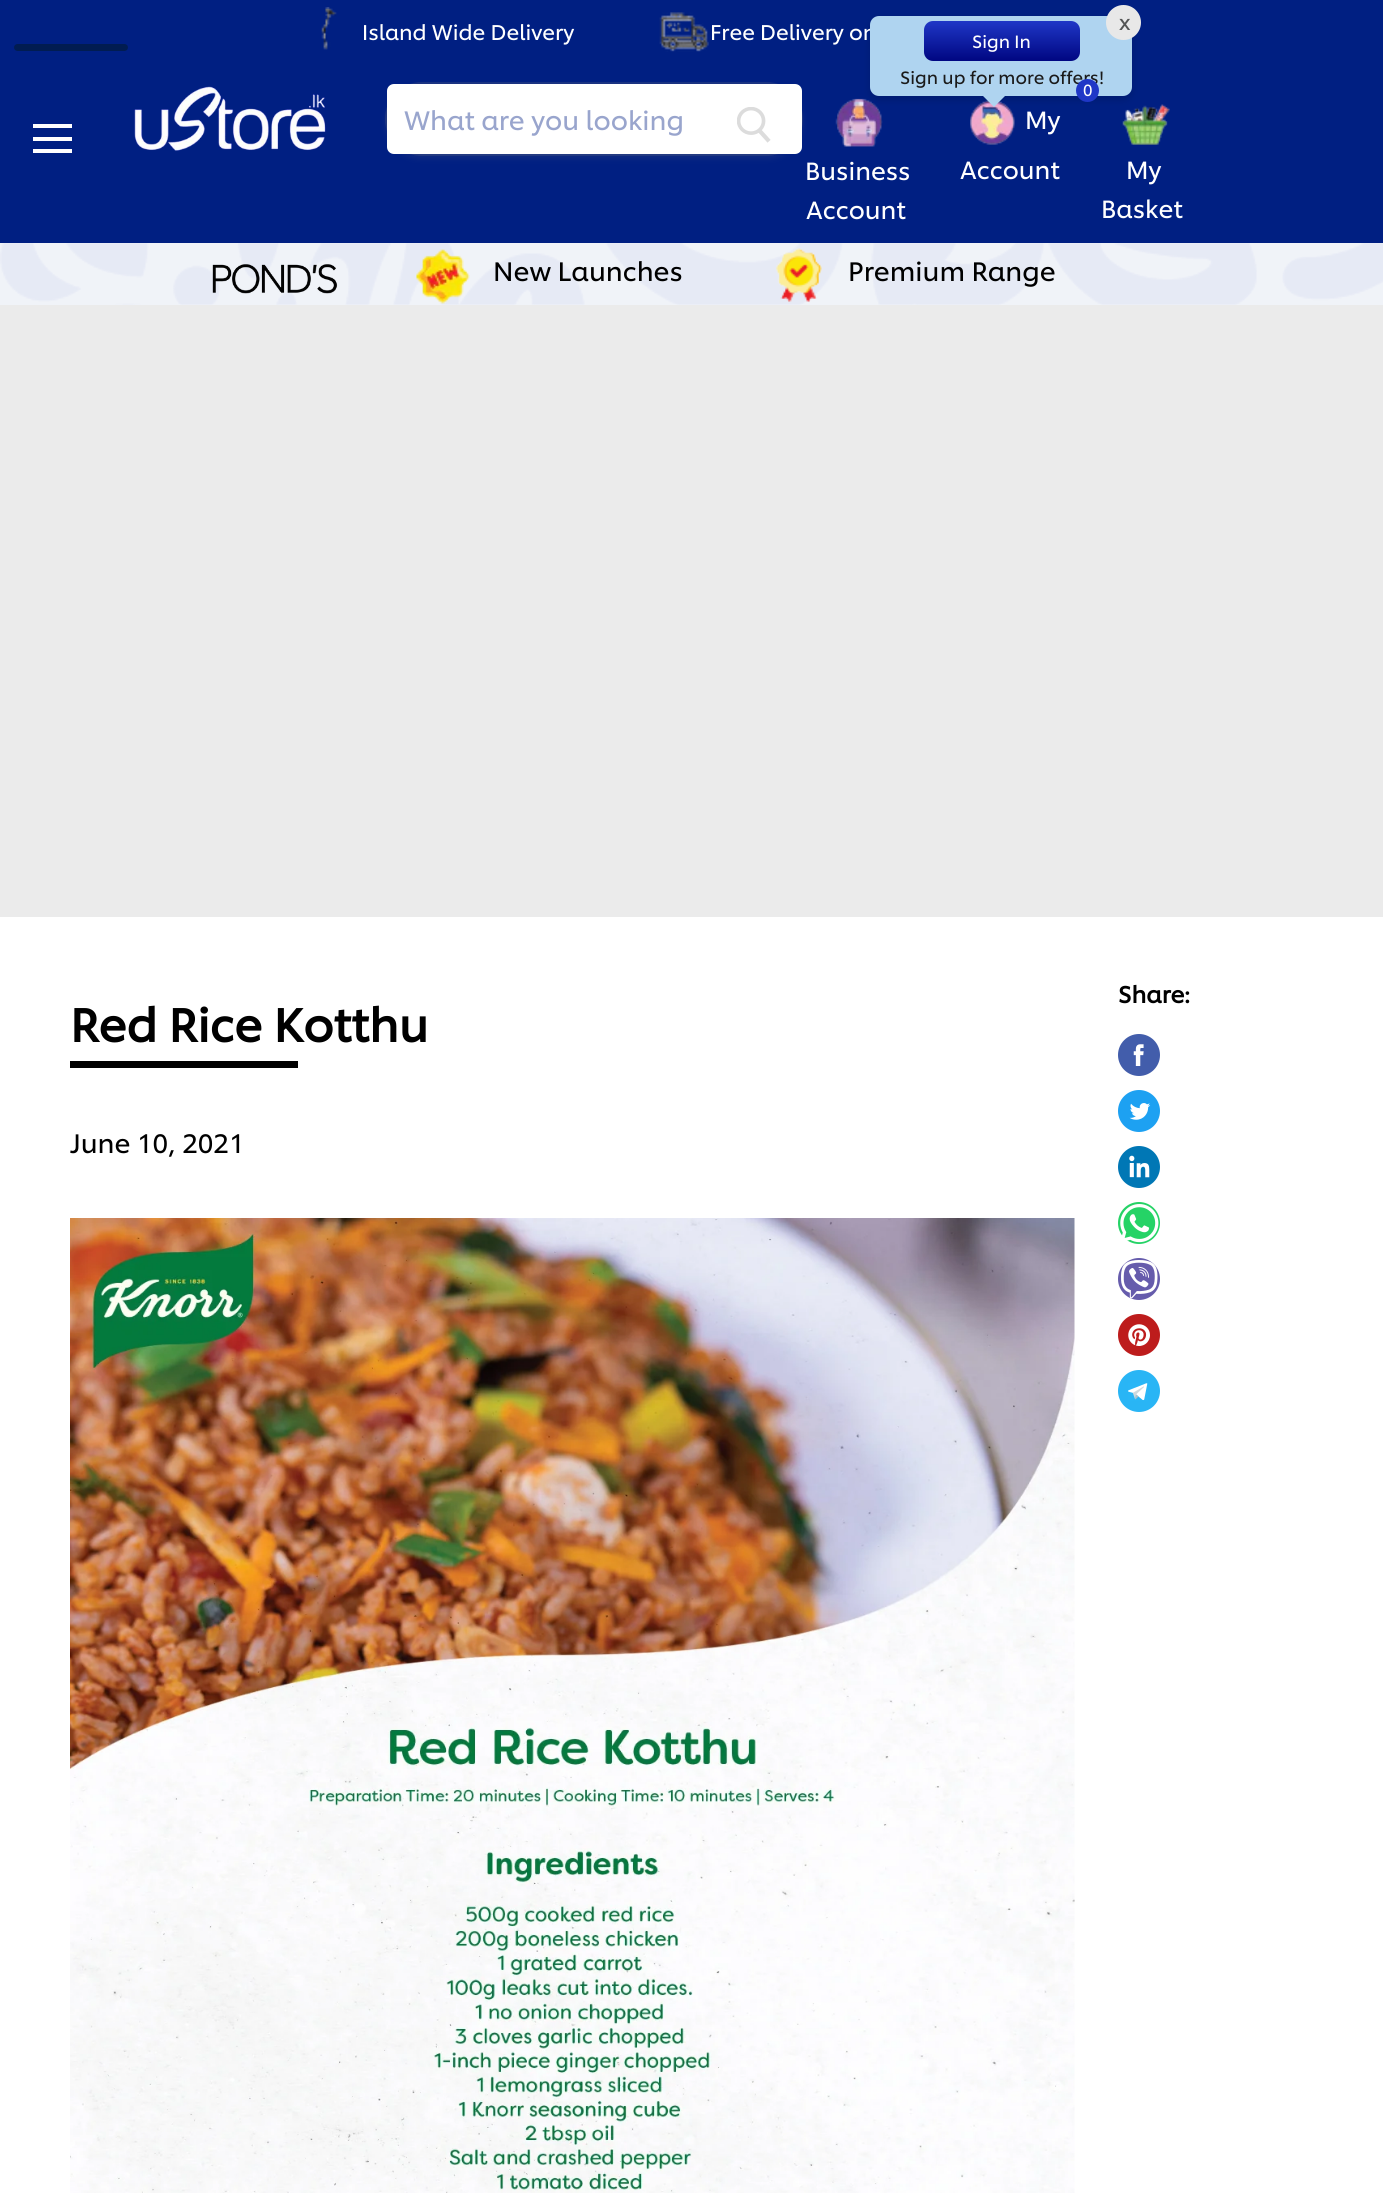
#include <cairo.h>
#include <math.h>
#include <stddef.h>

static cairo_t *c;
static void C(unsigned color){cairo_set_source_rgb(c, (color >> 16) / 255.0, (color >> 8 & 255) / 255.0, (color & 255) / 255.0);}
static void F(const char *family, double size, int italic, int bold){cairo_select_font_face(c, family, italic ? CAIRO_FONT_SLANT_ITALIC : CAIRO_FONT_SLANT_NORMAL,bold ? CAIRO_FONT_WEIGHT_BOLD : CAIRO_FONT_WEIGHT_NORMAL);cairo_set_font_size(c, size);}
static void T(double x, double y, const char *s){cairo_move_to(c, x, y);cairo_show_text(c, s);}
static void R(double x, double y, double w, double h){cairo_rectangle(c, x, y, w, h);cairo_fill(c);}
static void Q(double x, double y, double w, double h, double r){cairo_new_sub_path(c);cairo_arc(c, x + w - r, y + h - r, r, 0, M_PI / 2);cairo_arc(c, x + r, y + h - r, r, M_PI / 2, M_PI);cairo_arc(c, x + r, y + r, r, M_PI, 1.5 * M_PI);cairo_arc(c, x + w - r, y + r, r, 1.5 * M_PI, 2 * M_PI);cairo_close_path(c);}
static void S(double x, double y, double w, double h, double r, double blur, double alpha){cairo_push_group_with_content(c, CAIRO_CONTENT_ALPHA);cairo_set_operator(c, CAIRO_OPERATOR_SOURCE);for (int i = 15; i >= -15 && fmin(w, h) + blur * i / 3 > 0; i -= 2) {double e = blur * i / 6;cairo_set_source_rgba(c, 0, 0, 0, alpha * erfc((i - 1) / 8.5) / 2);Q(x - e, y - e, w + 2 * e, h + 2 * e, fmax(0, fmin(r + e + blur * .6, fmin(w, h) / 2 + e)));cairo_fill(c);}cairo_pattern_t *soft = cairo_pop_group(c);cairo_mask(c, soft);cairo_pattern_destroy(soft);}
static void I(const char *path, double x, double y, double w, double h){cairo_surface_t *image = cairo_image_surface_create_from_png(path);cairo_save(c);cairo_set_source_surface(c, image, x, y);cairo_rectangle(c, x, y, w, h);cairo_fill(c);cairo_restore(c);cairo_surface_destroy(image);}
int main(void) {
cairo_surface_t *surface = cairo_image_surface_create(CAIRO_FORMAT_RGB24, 1383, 2193);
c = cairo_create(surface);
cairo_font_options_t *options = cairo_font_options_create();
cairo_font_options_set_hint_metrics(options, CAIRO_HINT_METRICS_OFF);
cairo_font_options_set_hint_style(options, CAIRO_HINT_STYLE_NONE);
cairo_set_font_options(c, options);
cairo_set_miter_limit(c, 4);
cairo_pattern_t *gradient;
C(0xffffff);
cairo_paint(c);
C(0x001f82);
R(0,0,1383,243);
C(0x011c51);
Q(14,44,114,7,3.5);
cairo_fill(c);
C(0xffffff);
R(33,124,39,4);
R(33,137,39,4);
R(33,149,39,4);
I("1.png",134,86,192,65);
C(0x808080);
S(385,86,418,73,36.5,2.5,.11);
Q(386,83,416,72,36);
cairo_set_source_rgba(c,0.502,0.502,0.502,0.2);
cairo_stroke(c);
C(0xffffff);
Q(387,84,415,70,7);
cairo_fill(c);
F("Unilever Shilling",26.25,0,0);
C(0x99a5cd);
T(404,130,"What are you looking");
I("2.png",737,107,34,36);
I("3.png",835,98,48,49);
F("Unilever Shilling",24.5,0,0);
C(0xffffff);
T(805,180,"Business");
T(806,219,"Account");
I("4.png",970,100,45,45);
C(0x000000);
S(870,19,262,81,9,3.5,.13);
F("Unilever Shilling",21,0,0);
C(0xffffff);
T(710,40,"Free Delivery on");
C(0xafd4f0);
Q(870,16,262,80,9);
cairo_fill(c);
C(0xe8e8e8);
cairo_arc(c,1123.5,22.5,17.5,0,2 * M_PI);
cairo_fill(c);
C(0x535454);
T(1119,30,"x");
gradient = cairo_pattern_create_linear(1002,21,1002,61);
cairo_pattern_add_color_stop_rgba(gradient,0,0.122,0.216,0.78,1);
cairo_pattern_add_color_stop_rgba(gradient,1,0,0.024,0.506,1);
cairo_set_source(c,gradient);
cairo_pattern_destroy(gradient);
Q(924,21,156,40,9);
cairo_fill(c);
F("Unilever Shilling",17.5,0,0);
C(0xffffff);
T(972,48,"Sign In");
C(0x1a1a1a);
T(900,84,"Sign up for more offers!");
C(0xafd4f0);
cairo_new_path(c);
cairo_move_to(c,980,93);
cairo_line_to(c,1008,93);
cairo_line_to(c,994,107);
cairo_close_path(c);
cairo_fill(c);
F("Unilever Shilling",24.5,0,0);
C(0xffffff);
T(1025,129,"My");
T(960,179,"Account");
C(0x1f37c7);
cairo_new_path(c);
cairo_arc(c,1087.5,90.5,11.5,0,2 * M_PI);
cairo_fill(c);
F("Unilever Shilling",16,0,0);
C(0xffffff);
T(1083,96,"0");
I("5.png",1122,104,48,41);
F("Unilever Shilling",24.5,0,0);
T(1126,179,"My");
T(1101,218,"Basket");
C(0xf0f3f8);
R(0,243,1383,62);
I("6.png",0,243,1383,62);
I("7.png",212,264,126,30);
I("8.png",416,249,54,55);
F("Unilever Shilling",26.25,0,0);
C(0x000000);
T(493,281,"New Launches");
I("9.png",776,248,46,55);
T(848,281,"Premium Range");
I("10.png",321,7,16,43);
F("Unilever Shilling",21,0,0);
C(0xffffff);
T(362,40,"Island Wide Delivery");
I("11.png",659,12,50,40);
C(0xebebeb);
R(0,305,1383,612);
F("Unilever Shilling",23,0,1);
C(0x000000);
T(1118,1003,"Share:");
C(0x425dab);
cairo_new_path(c);
cairo_arc(c,1139,1055,21,0,2 * M_PI);
cairo_fill(c);
I("12.png",1133,1044,11,22);
C(0x1da1f2);
cairo_arc(c,1139,1111,21,0,2 * M_PI);
cairo_fill(c);
I("13.png",1129,1103,22,17);
C(0x0077b5);
cairo_arc(c,1139,1167,21,0,2 * M_PI);
cairo_fill(c);
I("14.png",1129,1155,21,23);
C(0x25d366);
cairo_arc(c,1139,1223,21,0,2 * M_PI);
cairo_fill(c);
I("15.png",1120,1204,39,39);
C(0x665cac);
cairo_arc(c,1139,1279,21,0,2 * M_PI);
cairo_fill(c);
I("16.png",1121,1260,37,39);
C(0xbd1c1c);
cairo_arc(c,1139,1335,21,0,2 * M_PI);
cairo_fill(c);
I("17.png",1128,1324,22,22);
C(0x29b5f5);
cairo_arc(c,1139,1391,21,0,2 * M_PI);
cairo_fill(c);
I("18.png",1128,1383,20,18);
F("Unilever Shilling",46,0,1);
C(0x000000);
T(70,1042,"Red Rice Kotthu");
R(70,1061,228,7);
F("Unilever Shilling",26.25,0,0);
T(70,1153,"June 10, 2021");
I("19.png",70,1218,1005,975);
cairo_surface_write_to_png(surface, "o.png");
cairo_font_options_destroy(options);
cairo_destroy(c);
cairo_surface_destroy(surface);
return 0;
}
